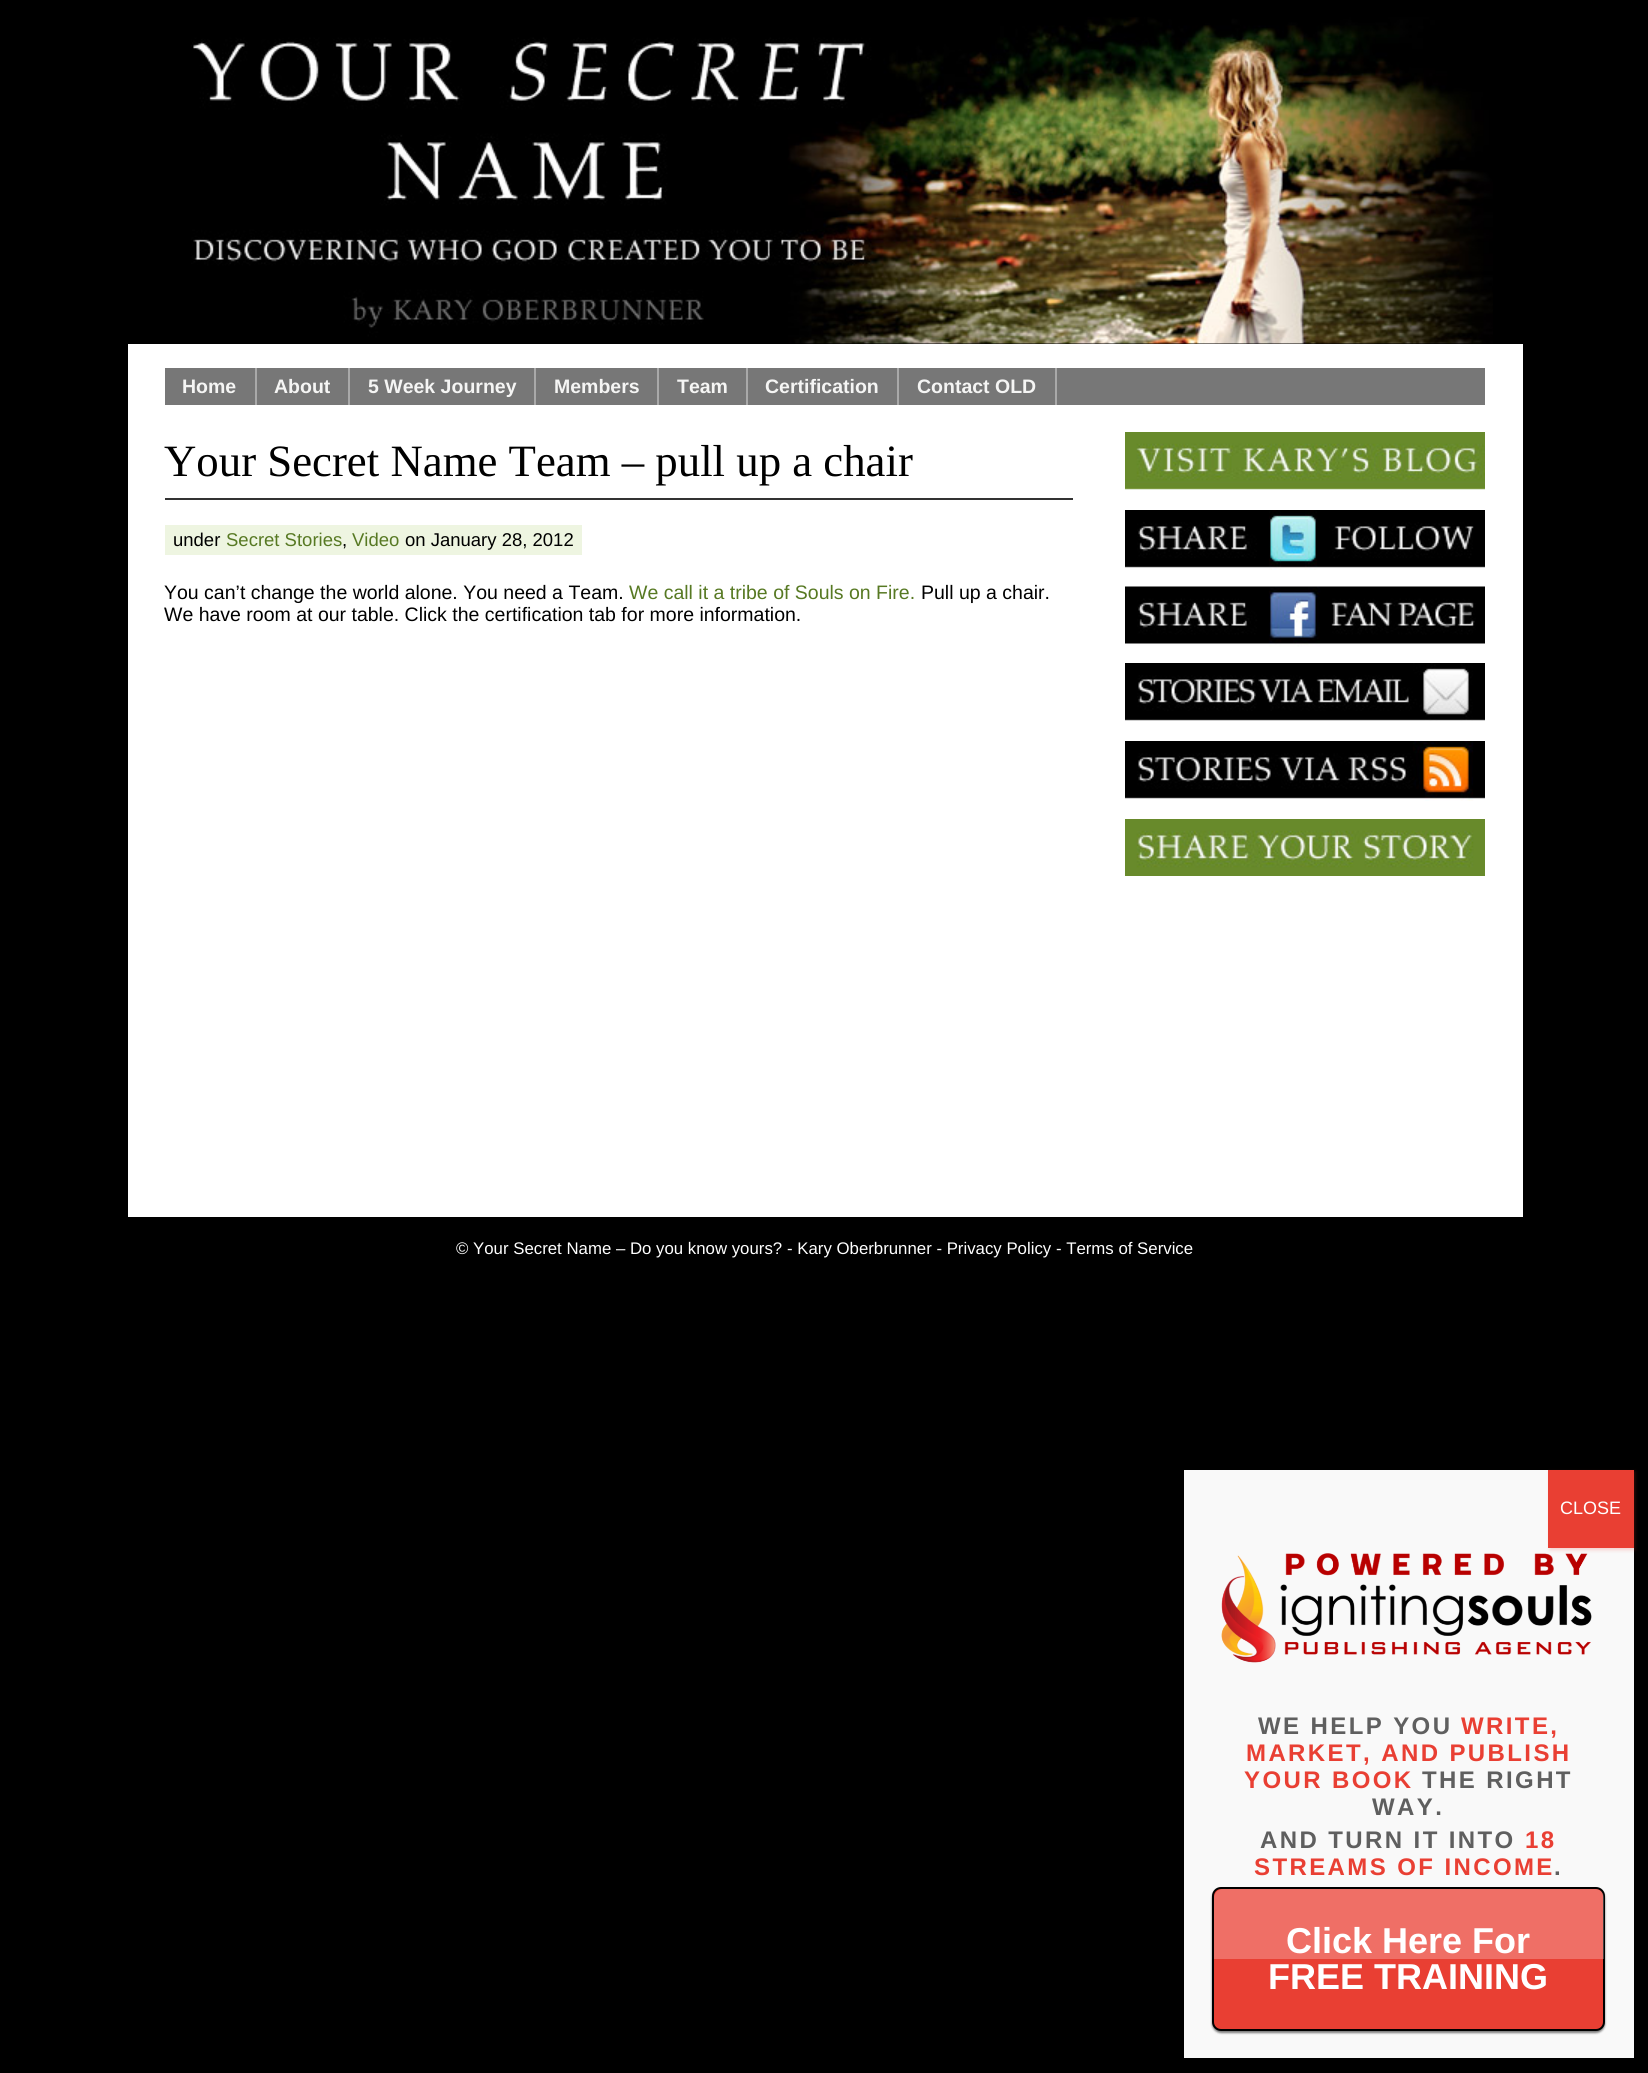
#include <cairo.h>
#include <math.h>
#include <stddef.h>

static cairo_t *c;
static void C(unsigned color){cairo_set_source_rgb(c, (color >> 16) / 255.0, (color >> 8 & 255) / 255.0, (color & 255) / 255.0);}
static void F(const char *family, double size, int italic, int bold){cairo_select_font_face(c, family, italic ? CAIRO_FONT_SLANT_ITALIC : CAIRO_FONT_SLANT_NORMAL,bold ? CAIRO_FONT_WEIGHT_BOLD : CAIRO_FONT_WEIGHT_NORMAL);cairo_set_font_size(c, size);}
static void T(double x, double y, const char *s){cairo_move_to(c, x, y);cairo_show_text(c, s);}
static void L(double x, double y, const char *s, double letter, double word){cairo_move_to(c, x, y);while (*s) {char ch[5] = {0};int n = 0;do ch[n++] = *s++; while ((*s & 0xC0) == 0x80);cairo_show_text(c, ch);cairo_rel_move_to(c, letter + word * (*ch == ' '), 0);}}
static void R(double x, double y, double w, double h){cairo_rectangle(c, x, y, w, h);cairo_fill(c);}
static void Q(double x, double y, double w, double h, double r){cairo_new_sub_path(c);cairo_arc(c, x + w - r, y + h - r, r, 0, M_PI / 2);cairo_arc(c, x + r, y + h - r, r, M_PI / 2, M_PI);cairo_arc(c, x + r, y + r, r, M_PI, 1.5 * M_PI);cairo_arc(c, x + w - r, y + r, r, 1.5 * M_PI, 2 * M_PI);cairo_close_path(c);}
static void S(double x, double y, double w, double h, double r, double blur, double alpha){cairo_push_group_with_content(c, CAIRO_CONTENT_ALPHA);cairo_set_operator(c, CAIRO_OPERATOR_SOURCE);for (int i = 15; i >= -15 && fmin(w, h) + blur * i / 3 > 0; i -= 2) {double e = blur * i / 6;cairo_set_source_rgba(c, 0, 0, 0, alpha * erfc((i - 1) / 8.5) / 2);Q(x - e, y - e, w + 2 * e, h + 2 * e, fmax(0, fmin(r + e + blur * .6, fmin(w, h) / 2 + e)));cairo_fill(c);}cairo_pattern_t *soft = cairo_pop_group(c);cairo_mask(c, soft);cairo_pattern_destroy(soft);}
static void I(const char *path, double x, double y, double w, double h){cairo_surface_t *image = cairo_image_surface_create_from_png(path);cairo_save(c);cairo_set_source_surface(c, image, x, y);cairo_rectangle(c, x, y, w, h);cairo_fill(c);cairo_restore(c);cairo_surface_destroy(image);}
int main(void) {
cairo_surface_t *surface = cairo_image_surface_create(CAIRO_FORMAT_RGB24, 1648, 2073);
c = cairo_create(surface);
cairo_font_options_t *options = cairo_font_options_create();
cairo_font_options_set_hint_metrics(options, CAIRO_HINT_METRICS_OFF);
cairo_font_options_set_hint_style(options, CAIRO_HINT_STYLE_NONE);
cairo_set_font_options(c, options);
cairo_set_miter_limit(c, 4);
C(0x000000);
cairo_paint(c);
I("1.png",191,17,1302,327);
C(0xffffff);
R(128,344,1395,873);
C(0x777777);
R(165,368,1320,37);
C(0xa9a9a9);
R(255,368,2,37);
F("Liberation Sans",19.5,0,1);
C(0xf5f5f4);
T(182,393,"Home");
C(0xa9a9a9);
R(348,368,2,37);
C(0xf5f5f4);
T(274,393,"About");
C(0xa9a9a9);
R(534,368,2,37);
C(0xf5f5f4);
T(368,393,"5 Week Journey");
C(0xa9a9a9);
R(657,368,2,37);
C(0xf5f5f4);
T(554,393,"Members");
C(0xa9a9a9);
R(746,368,2,37);
C(0xf5f5f4);
T(677,393,"Team");
C(0xa9a9a9);
R(897,368,2,37);
C(0xf5f5f4);
T(765,393,"Certification");
C(0xa9a9a9);
R(1055,368,2,37);
C(0xf5f5f4);
T(917,393,"Contact OLD");
C(0x333333);
R(165,498,908,2);
F("Liberation Serif",44.8,0,0);
C(0x000000);
T(164,476,"Your Secret Name Team – pull up a chair");
C(0xeef5e1);
R(165,525,417,30);
F("Liberation Sans",18.5,0,0);
C(0x000000);
T(173,546,"under");
C(0x577923);
T(226,546,"Secret Stories");
C(0x000000);
T(342,546,",");
C(0x577923);
T(352,546,"Video");
C(0x000000);
T(405,546,"on January 28, 2012");
F("Liberation Sans",19.5,0,0);
T(164,599,"You can’t change the world alone. You need a Team.");
C(0x577923);
T(629,599,"We call it a tribe of Souls on Fire.");
C(0x000000);
T(921,599,"Pull up a chair.");
T(164,621,"We have room at our table. Click the certification tab for more information.");
I("2.png",1125,432,360,58);
I("3.png",1125,510,168,60);
I("4.png",1293,510,192,60);
I("5.png",1125,586,171,61);
I("6.png",1296,586,189,61);
I("7.png",1125,663,360,58);
I("8.png",1125,741,360,60);
I("9.png",1125,819,360,57);
F("Liberation Sans",16.8,0,0);
C(0xffffff);
T(456,1254,"© Your Secret Name – Do you know yours?");
T(787,1254,"- Kary Oberbrunner - Privacy Policy - Terms of Service");
C(0xf9f9f9);
R(1184,1470,450,588);
I("10.png",1221,1553,371,110);
C(0xe93f33);
S(1550,1472,85,78,0,2,.23);
C(0xe93f33);
R(1548,1470,86,78);
F("Liberation Sans",18,0,0);
C(0xffffff);
T(1560,1514,"CLOSE");
F("Liberation Sans",24,0,1);
C(0x5f5f5f);
L(1258,1734,"WE HELP YOU",2.4,0);
C(0xe93f33);
L(1461,1734,"WRITE,",2.4,0);
L(1246,1761,"MARKET, AND PUBLISH",2.4,0);
L(1244,1788,"YOUR BOOK",2.4,0);
C(0x5f5f5f);
L(1422,1788,"THE RIGHT",2.4,0);
L(1372,1815,"WAY.",2.4,0);
L(1260,1848,"AND TURN IT INTO",2.4,0);
C(0xe93f33);
L(1525,1848,"18",2.4,0);
L(1254,1875,"STREAMS OF INCOME",2.4,0);
C(0x5f5f5f);
L(1554,1875,".",2.4,0);
C(0x000000);
S(1212,1889,393,144,9,1,.5);
C(0xe93f33);
Q(1213,1888,391,142,8);
cairo_fill_preserve(c);
C(0x000000);
cairo_stroke(c);
cairo_set_source_rgba(c,1,1,1,0.25);
cairo_new_path(c);
cairo_move_to(c,1223,1889);
cairo_line_to(c,1595,1889);
cairo_curve_to(c,1600,1889,1604,1893,1604,1898);
cairo_line_to(c,1604,1959);
cairo_line_to(c,1214,1959);
cairo_line_to(c,1214,1898);
cairo_curve_to(c,1214,1893,1218,1889,1223,1889);
cairo_close_path(c);
cairo_fill(c);
F("Liberation Sans",36,0,1);
C(0xffffff);
T(1286,1953,"Click Here For");
T(1268,1989,"FREE TRAINING");
cairo_surface_write_to_png(surface, "o.png");
cairo_font_options_destroy(options);
cairo_destroy(c);
cairo_surface_destroy(surface);
return 0;
}
